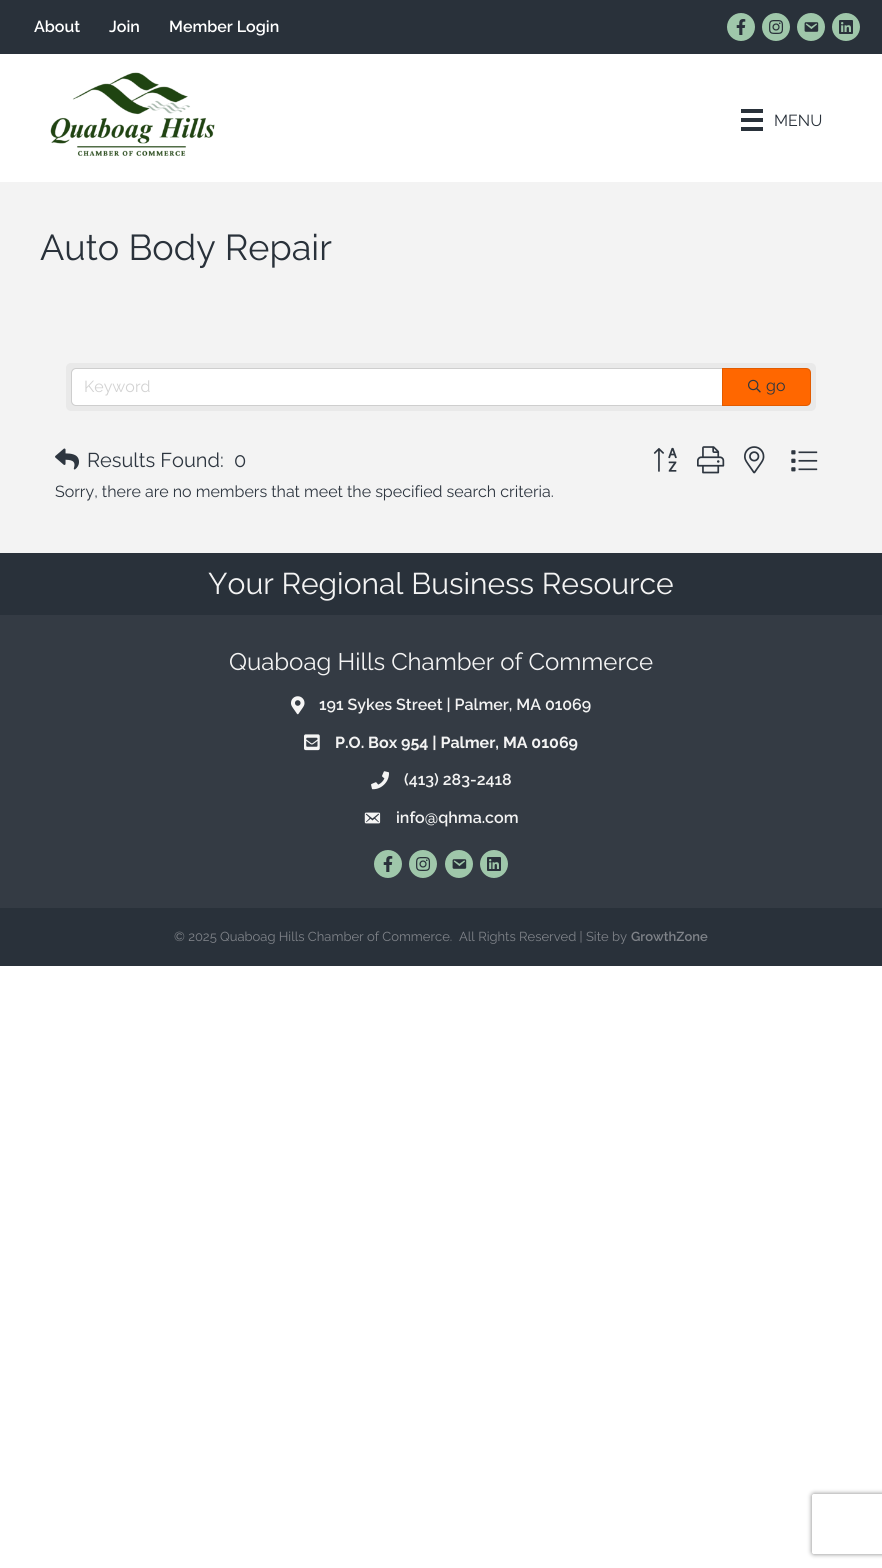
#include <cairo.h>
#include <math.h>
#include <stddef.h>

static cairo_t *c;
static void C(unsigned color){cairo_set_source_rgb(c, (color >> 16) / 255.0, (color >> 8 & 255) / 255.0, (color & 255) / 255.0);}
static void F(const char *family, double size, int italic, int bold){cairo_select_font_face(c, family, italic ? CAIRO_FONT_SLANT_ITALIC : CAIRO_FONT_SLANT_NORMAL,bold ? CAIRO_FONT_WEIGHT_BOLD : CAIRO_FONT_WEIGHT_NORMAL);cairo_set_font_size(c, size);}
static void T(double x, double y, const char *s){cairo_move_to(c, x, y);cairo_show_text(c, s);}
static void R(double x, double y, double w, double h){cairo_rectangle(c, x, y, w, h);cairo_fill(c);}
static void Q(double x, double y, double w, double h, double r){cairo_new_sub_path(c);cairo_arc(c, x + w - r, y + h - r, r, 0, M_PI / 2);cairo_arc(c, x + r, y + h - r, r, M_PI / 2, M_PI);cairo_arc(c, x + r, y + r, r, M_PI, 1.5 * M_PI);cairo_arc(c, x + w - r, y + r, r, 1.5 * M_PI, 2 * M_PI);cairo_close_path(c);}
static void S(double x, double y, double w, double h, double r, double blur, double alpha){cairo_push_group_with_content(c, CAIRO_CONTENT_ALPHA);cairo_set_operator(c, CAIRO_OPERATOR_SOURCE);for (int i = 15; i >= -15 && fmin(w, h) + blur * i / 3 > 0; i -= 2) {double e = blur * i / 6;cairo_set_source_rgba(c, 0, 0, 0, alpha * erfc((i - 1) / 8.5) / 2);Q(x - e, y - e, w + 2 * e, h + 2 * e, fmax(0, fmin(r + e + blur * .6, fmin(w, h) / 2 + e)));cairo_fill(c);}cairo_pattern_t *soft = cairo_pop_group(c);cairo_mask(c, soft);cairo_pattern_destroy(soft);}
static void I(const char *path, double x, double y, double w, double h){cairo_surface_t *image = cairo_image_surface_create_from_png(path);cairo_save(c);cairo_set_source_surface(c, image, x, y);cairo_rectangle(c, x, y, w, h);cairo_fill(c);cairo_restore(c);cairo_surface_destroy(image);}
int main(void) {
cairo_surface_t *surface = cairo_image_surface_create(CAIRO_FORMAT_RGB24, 882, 1568);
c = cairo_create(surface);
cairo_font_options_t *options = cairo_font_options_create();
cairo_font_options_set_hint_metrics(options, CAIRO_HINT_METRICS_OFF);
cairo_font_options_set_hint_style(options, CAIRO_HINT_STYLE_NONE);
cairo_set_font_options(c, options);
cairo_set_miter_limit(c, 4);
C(0xffffff);
cairo_paint(c);
C(0x29313a);
R(0,0,882,54);
F("Raleway SemiBold",16,0,0);
C(0xffffff);
T(34,32,"About");
T(109,32,"Join");
T(169,32,"Member Login");
C(0x9fc7aa);
cairo_new_path(c);
cairo_arc(c,741,27,14,0,2 * M_PI);
cairo_fill(c);
I("1.png",736,19,10,16);
cairo_arc(c,776,27,14,0,2 * M_PI);
cairo_fill(c);
I("2.png",769,20,15,14);
cairo_arc(c,811,27,14,0,2 * M_PI);
cairo_fill(c);
I("3.png",804,22,15,10);
cairo_arc(c,846,27,14,0,2 * M_PI);
cairo_fill(c);
I("4.png",839,20,14,14);
I("5.png",50,72,165,84);
C(0x29313a);
R(741,109,22,4);
R(741,118,22,4);
R(741,127,22,4);
F("Raleway",16,0,0);
T(774,126,"MENU");
C(0xf3f3f3);
R(0,182,882,371);
F("Raleway",36,0,0);
C(0x29313a);
T(40,260,"Auto Body Repair");
C(0xe9e9e9);
Q(66,363,750,48,5);
cairo_fill(c);
C(0xffffff);
cairo_new_path(c);
cairo_move_to(c,76,369);
cairo_line_to(c,722,369);
cairo_line_to(c,722,405);
cairo_line_to(c,76,405);
cairo_curve_to(c,74,405,72,403,72,401);
cairo_line_to(c,72,373);
cairo_curve_to(c,72,371,74,369,76,369);
cairo_close_path(c);
cairo_fill(c);
cairo_new_path(c);
cairo_move_to(c,76,368.5);
cairo_line_to(c,722.5,368.5);
cairo_line_to(c,722.5,405.5);
cairo_line_to(c,76,405.5);
cairo_curve_to(c,73.5,405.5,71.5,403.5,71.5,401);
cairo_line_to(c,71.5,373);
cairo_curve_to(c,71.5,370.5,73.5,368.5,76,368.5);
cairo_close_path(c);
cairo_set_source_rgba(c,0,0,0,0.12);
cairo_set_line_width(c,1);
cairo_stroke(c);
F("Raleway",16,0,0);
C(0xd2d2d2);
T(84,392,"Keyword");
C(0xff6700);
cairo_new_path(c);
cairo_move_to(c,722,368);
cairo_line_to(c,806,368);
cairo_curve_to(c,809,368,811,370,811,373);
cairo_line_to(c,811,401);
cairo_curve_to(c,811,404,809,406,806,406);
cairo_line_to(c,722,406);
cairo_close_path(c);
cairo_fill(c);
cairo_new_path(c);
cairo_move_to(c,722.5,368.5);
cairo_line_to(c,806,368.5);
cairo_curve_to(c,808.5,368.5,810.5,370.5,810.5,373);
cairo_line_to(c,810.5,401);
cairo_curve_to(c,810.5,403.5,808.5,405.5,806,405.5);
cairo_line_to(c,722.5,405.5);
cairo_close_path(c);
cairo_set_source_rgba(c,0,0,0,0.12);
cairo_stroke(c);
I("6.png",748,379,13,14);
C(0x2e3640);
T(766,391,"go");
I("7.png",55,448,24,22);
F("Raleway",20,0,0);
T(87,467,"Results Found:");
T(234,467,"0");
I("8.png",653,447,24,25);
I("9.png",697,446,28,28);
I("10.png",744,446,21,28);
I("11.png",791,450,27,22);
F("Raleway",16,0,0);
T(55,497,"Sorry, there are no members that meet the specified search criteria.");
C(0x29313a);
R(0,553,882,62);
F("Raleway",30,0,0);
C(0xf3f3f3);
T(208,594,"Your Regional Business Resource");
C(0x343b44);
R(0,615,882,293);
F("Raleway",24,0,0);
C(0xf3f3f3);
T(229,670,"Quaboag Hills Chamber of Commerce");
I("12.png",291,696,14,19);
F("Raleway SemiBold",16,0,0);
T(319,710,"191 Sykes Street | Palmer, MA 01069");
I("13.png",304,734,16,17);
F("Raleway",16,0,1);
T(335,748,"P.O. Box 954 | Palmer, MA 01069");
I("14.png",371,771,18,19);
F("Raleway SemiBold",16,0,0);
T(404,785,"(413) 283-2418");
I("15.png",364,812,17,12);
T(396,823,"info@qhma.com");
C(0x9fc7aa);
cairo_new_path(c);
cairo_arc(c,388,864,14,0,2 * M_PI);
cairo_fill(c);
I("1.png",383,856,10,16);
cairo_arc(c,423,864,14,0,2 * M_PI);
cairo_fill(c);
I("2.png",416,857,15,14);
cairo_arc(c,459,864,14,0,2 * M_PI);
cairo_fill(c);
I("3.png",452,859,15,10);
cairo_arc(c,494,864,14,0,2 * M_PI);
cairo_fill(c);
I("4.png",487,857,14,14);
C(0x29313a);
R(0,908,882,58);
F("Raleway",13,0,0);
C(0x7f8389);
T(174,941,"© 2025 Quaboag Hills Chamber of Commerce.");
T(459,941,"All Rights Reserved | Site by");
F("Raleway SemiBold",13,0,0);
T(631,941,"GrowthZone");
cairo_save(c);
cairo_set_fill_rule(c,CAIRO_FILL_RULE_EVEN_ODD);
cairo_new_path(c);
cairo_move_to(c,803,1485);
cairo_line_to(c,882,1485);
cairo_line_to(c,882,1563);
cairo_line_to(c,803,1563);
cairo_close_path(c);
cairo_move_to(c,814,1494);
cairo_line_to(c,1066,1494);
cairo_curve_to(c,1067,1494,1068,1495,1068,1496);
cairo_line_to(c,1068,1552);
cairo_curve_to(c,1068,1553,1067,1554,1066,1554);
cairo_line_to(c,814,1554);
cairo_curve_to(c,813,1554,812,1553,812,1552);
cairo_line_to(c,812,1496);
cairo_curve_to(c,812,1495,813,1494,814,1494);
cairo_close_path(c);
cairo_clip(c);
C(0x808080);
S(812,1494,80,60,2,2.5,1);
cairo_restore(c);
cairo_surface_write_to_png(surface, "o.png");
cairo_font_options_destroy(options);
cairo_destroy(c);
cairo_surface_destroy(surface);
return 0;
}
